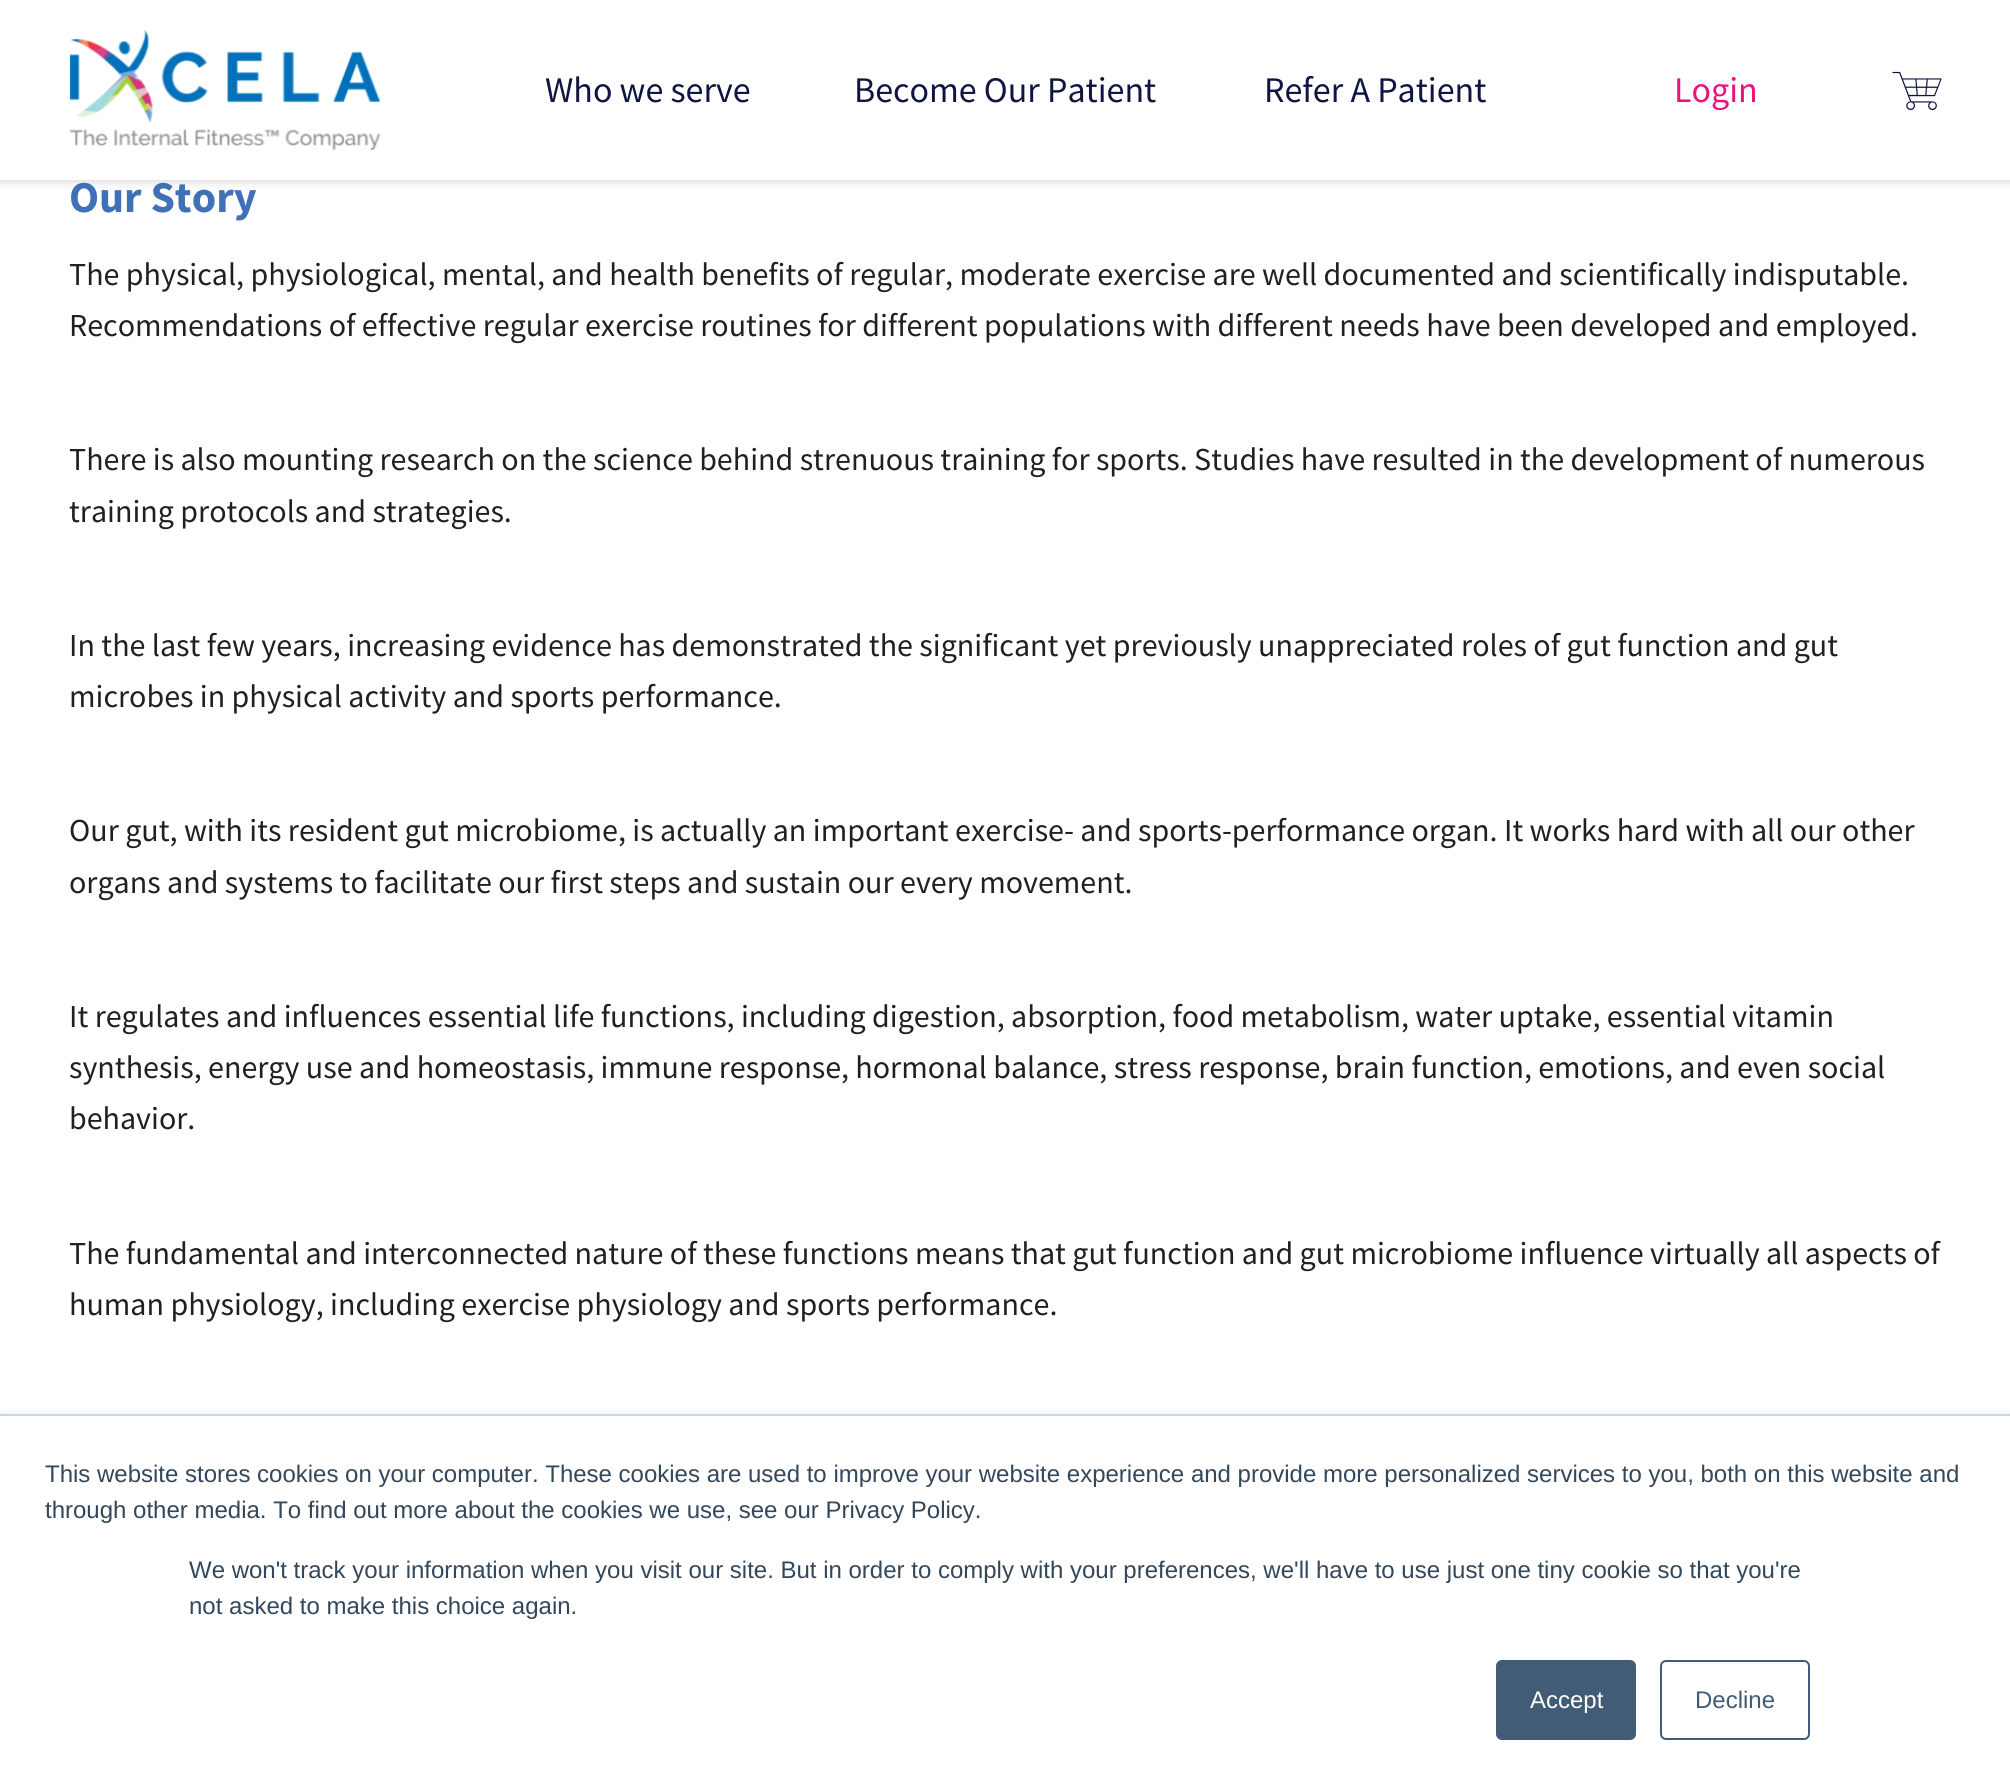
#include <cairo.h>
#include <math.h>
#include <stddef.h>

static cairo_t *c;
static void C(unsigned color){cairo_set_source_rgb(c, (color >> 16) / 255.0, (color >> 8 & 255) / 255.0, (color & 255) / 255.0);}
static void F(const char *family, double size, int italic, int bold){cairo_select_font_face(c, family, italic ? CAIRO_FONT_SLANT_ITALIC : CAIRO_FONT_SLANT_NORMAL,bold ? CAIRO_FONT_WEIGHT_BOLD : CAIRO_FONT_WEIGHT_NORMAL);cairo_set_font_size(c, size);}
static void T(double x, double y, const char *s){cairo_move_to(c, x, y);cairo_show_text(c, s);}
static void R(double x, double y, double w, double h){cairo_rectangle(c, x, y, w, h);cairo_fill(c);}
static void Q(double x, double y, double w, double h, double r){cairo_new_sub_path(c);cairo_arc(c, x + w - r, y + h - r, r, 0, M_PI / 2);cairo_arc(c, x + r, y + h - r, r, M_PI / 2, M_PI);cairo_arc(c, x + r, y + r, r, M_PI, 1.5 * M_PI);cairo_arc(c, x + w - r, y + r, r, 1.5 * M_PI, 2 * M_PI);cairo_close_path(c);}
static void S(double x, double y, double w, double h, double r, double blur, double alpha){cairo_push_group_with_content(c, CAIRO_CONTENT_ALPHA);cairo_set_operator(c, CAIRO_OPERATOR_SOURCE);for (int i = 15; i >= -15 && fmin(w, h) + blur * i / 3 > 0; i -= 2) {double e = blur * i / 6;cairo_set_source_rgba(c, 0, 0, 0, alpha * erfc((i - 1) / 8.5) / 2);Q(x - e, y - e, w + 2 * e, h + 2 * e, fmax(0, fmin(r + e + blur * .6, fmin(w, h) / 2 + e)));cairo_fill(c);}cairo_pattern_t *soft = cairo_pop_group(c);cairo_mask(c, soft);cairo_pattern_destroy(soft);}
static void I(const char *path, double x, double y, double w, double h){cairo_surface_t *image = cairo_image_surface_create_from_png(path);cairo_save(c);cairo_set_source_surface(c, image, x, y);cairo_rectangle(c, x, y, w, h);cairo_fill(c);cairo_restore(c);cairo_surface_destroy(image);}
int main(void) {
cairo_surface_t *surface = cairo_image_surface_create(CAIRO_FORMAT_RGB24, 2010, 1792);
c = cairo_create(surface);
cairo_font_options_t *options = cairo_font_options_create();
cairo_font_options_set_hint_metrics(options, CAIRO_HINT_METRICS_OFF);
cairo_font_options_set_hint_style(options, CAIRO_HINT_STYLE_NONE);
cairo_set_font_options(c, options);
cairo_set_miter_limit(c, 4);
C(0xffffff);
cairo_paint(c);
C(0x000000);
S(-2,-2,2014,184,0,5,.15);
C(0xffffff);
R(0,0,2010,180);
I("1.png",69,30,311,120);
F("Source Sans Pro",36,0,0);
C(0x0f1442);
T(545,102,"Who we serve");
T(854,102,"Become Our Patient");
T(1264,102,"Refer A Patient");
C(0xec127e);
T(1674,102,"Login");
I("2.png",1892,71,50,40);
F("Source Sans Pro",44,0,1);
C(0x4071b6);
T(69,212,"Our Story");
F("Source Sans Pro",32,0,0);
C(0x202020);
T(69,285,"The physical, physiological, mental, and health benefits of regular, moderate exercise are well documented and scientifically indisputable.");
T(69,336,"Recommendations of effective regular exercise routines for different populations with different needs have been developed and employed.");
T(69,470,"There is also mounting research on the science behind strenuous training for sports. Studies have resulted in the development of numerous");
T(69,522,"training protocols and strategies.");
T(69,656,"In the last few years, increasing evidence has demonstrated the significant yet previously unappreciated roles of gut function and gut");
T(69,707,"microbes in physical activity and sports performance.");
T(69,841,"Our gut, with its resident gut microbiome, is actually an important exercise- and sports-performance organ. It works hard with all our other");
T(69,893,"organs and systems to facilitate our first steps and sustain our every movement.");
T(69,1027,"It regulates and influences essential life functions, including digestion, absorption, food metabolism, water uptake, essential vitamin");
T(69,1078,"synthesis, energy use and homeostasis, immune response, hormonal balance, stress response, brain function, emotions, and even social");
T(69,1129,"behavior.");
T(69,1264,"The fundamental and interconnected nature of these functions means that gut function and gut microbiome influence virtually all aspects of");
T(69,1315,"human physiology, including exercise physiology and sports performance.");
C(0xeaf0f6);
S(0,1412,2010,378,0,3,1);
C(0xffffff);
R(0,1416,2010,376);
C(0xcbd6e2);
R(0,1414,2010,2);
F("Liberation Sans",24,0,0);
C(0x33475b);
T(45,1482,"This website stores cookies on your computer. These cookies are used to improve your website experience and provide more personalized services to you, both on this website and");
T(45,1518,"through other media. To find out more about the cookies we use, see our Privacy Policy.");
T(189,1578,"We won't track your information when you visit our site. But in order to comply with your preferences, we'll have to use just one tiny cookie so that you're");
T(189,1614,"not asked to make this choice again.");
C(0x425b76);
Q(1497,1661,138,78,5);
cairo_fill_preserve(c);
cairo_stroke(c);
C(0xffffff);
T(1530,1708,"Accept");
Q(1661,1661,148,78,5);
C(0x425b76);
cairo_stroke(c);
T(1695,1708,"Decline");
cairo_surface_write_to_png(surface, "o.png");
cairo_font_options_destroy(options);
cairo_destroy(c);
cairo_surface_destroy(surface);
return 0;
}
